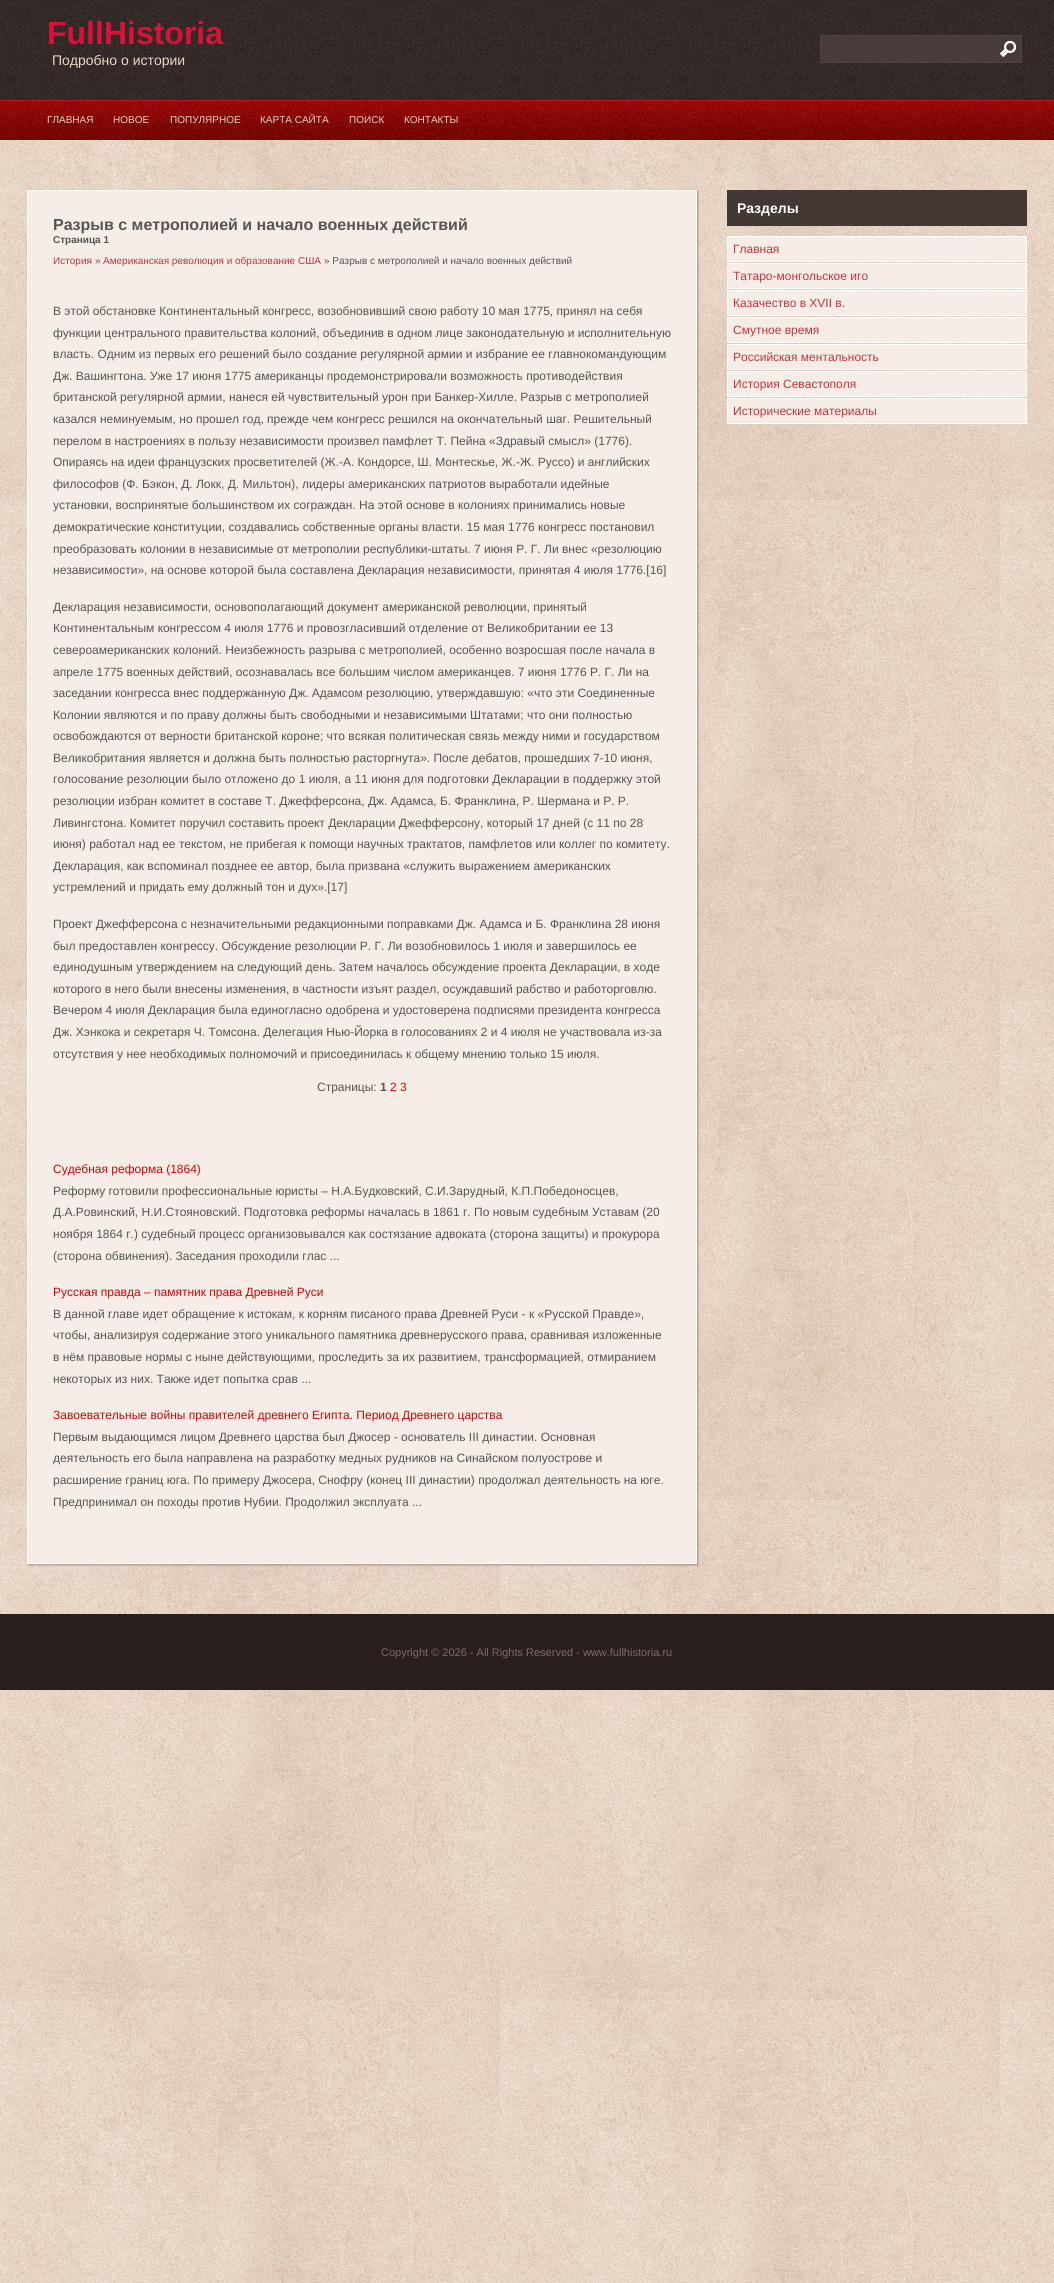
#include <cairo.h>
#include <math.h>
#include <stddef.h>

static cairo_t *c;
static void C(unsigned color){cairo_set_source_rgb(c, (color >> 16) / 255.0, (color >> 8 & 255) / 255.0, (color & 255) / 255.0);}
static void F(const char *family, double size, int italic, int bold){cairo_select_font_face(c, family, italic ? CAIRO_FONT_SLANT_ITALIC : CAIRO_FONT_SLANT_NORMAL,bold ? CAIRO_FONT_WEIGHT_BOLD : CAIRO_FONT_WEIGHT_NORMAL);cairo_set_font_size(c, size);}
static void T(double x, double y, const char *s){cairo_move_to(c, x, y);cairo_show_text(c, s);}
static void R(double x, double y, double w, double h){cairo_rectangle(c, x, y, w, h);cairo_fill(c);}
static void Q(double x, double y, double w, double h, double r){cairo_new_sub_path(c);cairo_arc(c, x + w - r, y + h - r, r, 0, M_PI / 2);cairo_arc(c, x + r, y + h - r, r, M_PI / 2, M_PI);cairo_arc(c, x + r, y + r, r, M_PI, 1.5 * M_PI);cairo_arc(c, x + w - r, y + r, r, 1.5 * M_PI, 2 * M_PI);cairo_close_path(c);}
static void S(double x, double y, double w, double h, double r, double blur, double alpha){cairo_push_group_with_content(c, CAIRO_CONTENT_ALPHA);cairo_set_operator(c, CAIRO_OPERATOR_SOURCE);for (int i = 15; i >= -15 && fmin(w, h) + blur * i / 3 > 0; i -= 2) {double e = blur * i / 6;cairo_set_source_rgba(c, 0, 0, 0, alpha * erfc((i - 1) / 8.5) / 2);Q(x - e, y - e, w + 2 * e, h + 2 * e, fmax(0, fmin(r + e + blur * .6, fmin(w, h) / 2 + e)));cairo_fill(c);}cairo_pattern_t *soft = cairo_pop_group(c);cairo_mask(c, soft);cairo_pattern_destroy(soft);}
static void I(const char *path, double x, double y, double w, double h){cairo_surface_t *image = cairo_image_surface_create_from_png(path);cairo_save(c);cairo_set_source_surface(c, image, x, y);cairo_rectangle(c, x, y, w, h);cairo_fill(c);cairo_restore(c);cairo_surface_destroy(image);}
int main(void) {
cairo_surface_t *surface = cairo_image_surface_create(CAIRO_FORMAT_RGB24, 1054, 2283);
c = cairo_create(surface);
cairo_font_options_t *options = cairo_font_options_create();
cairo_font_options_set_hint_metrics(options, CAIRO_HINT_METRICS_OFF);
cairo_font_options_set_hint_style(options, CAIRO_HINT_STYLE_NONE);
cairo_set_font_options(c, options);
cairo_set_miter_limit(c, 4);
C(0xffffff);
cairo_paint(c);
I("1.png",0,140,1054,2143);
I("2.png",0,0,1054,100);
F("Liberation Sans",32,0,1);
C(0xdb1139);
T(47,44,"FullHistoria");
F("Liberation Sans",14,0,0);
C(0xead7c6);
T(52,65,"Подробно о истории");
C(0x493c38);
cairo_rectangle(c,820.5,35.5,201,27);
cairo_fill_preserve(c);
C(0x514440);
cairo_set_line_width(c,1);
cairo_stroke(c);
I("3.png",1000,41,16,16);
I("4.png",0,100,1054,40);
F("Liberation Sans",10,0,0);
C(0xdbd5c0);
T(47,123,"ГЛАВНАЯ");
T(113,123,"НОВОЕ");
T(170,123,"ПОПУЛЯРНОЕ");
T(260,123,"КАРТА САЙТА");
T(349,123,"ПОИСК");
T(404,123,"КОНТАКТЫ");
C(0xa38f81);
S(28,191,670,1374,0,1,1);
C(0xf5ede6);
cairo_rectangle(c,27.5,190.5,669,1373);
cairo_fill_preserve(c);
C(0xffffff);
cairo_stroke(c);
F("Liberation Sans",16,0,1);
C(0x555555);
T(53,230,"Разрыв с метрополией и начало военных действий");
F("Liberation Sans",10,0,1);
T(53,243,"Страница 1");
F("Liberation Sans",10,0,0);
C(0xca333e);
T(53,264,"История");
C(0x555555);
T(95,264,"»");
C(0xca333e);
T(103,264,"Американская революция и образование США");
C(0x555555);
T(324,264,"» Разрыв с метрополией и начало военных действий");
F("Liberation Sans",12,0,0);
T(53,315,"В этой обстановке Континентальный конгресс, возобновивший свою работу 10 мая 1775, принял на себя");
T(53,337,"функции центрального правительства колоний, объединив в одном лице законодательную и исполнительную");
T(53,358,"власть. Одним из первых его решений было создание регулярной армии и избрание ее главнокомандующим");
T(53,380,"Дж. Вашингтона. Уже 17 июня 1775 американцы продемонстрировали возможность противодействия");
T(53,401,"британской регулярной армии, нанеся ей чувствительный урон при Банкер-Хилле. Разрыв с метрополией");
T(53,423,"казался неминуемым, но прошел год, прежде чем конгресс решился на окончательный шаг. Решительный");
T(53,445,"перелом в настроениях в пользу независимости произвел памфлет Т. Пейна «Здравый смысл» (1776).");
T(53,466,"Опираясь на идеи французских просветителей (Ж.-А. Кондорсе, Ш. Монтескье, Ж.-Ж. Руссо) и английских");
T(53,488,"философов (Ф. Бэкон, Д. Локк, Д. Мильтон), лидеры американских патриотов выработали идейные");
T(53,509,"установки, воспринятые большинством их сограждан. На этой основе в колониях принимались новые");
T(53,531,"демократические конституции, создавались собственные органы власти. 15 мая 1776 конгресс постановил");
T(53,553,"преобразовать колонии в независимые от метрополии республики-штаты. 7 июня Р. Г. Ли внес «резолюцию");
T(53,574,"независимости», на основе которой была составлена Декларация независимости, принятая 4 июля 1776.[16]");
T(53,611,"Декларация независимости, основополагающий документ американской революции, принятый");
T(53,632,"Континентальным конгрессом 4 июля 1776 и провозгласивший отделение от Великобритании ее 13");
T(53,654,"североамериканских колоний. Неизбежность разрыва с метрополией, особенно возросшая после начала в");
T(53,676,"апреле 1775 военных действий, осознавалась все большим числом американцев. 7 июня 1776 Р. Г. Ли на");
T(53,697,"заседании конгресса внес поддержанную Дж. Адамсом резолюцию, утверждавшую: «что эти Соединенные");
T(53,719,"Колонии являются и по праву должны быть свободными и независимыми Штатами; что они полностью");
T(53,740,"освобождаются от верности британской короне; что всякая политическая связь между ними и государством");
T(53,762,"Великобритания является и должна быть полностью расторгнута». После дебатов, прошедших 7-10 июня,");
T(53,783,"голосование резолюции было отложено до 1 июля, а 11 июня для подготовки Декларации в поддержку этой");
T(53,805,"резолюции избран комитет в составе Т. Джефферсона, Дж. Адамса, Б. Франклина, Р. Шермана и Р. Р.");
T(53,827,"Ливингстона. Комитет поручил составить проект Декларации Джефферсону, который 17 дней (с 11 по 28");
T(53,848,"июня) работал над ее текстом, не прибегая к помощи научных трактатов, памфлетов или коллег по комитету.");
T(53,870,"Декларация, как вспоминал позднее ее автор, была призвана «служить выражением американских");
T(53,891,"устремлений и придать ему должный тон и дух».[17]");
T(53,928,"Проект Джефферсона с незначительными редакционными поправками Дж. Адамса и Б. Франклина 28 июня");
T(53,950,"был предоставлен конгрессу. Обсуждение резолюции Р. Г. Ли возобновилось 1 июля и завершилось ее");
T(53,971,"единодушным утверждением на следующий день. Затем началось обсуждение проекта Декларации, в ходе");
T(53,993,"которого в него были внесены изменения, в частности изъят раздел, осуждавший рабство и работорговлю.");
T(53,1014,"Вечером 4 июля Декларация была единогласно одобрена и удостоверена подписями президента конгресса");
T(53,1036,"Дж. Хэнкока и секретаря Ч. Томсона. Делегация Нью-Йорка в голосованиях 2 и 4 июля не участвовала из-за");
T(53,1058,"отсутствия у нее необходимых полномочий и присоединилась к общему мнению только 15 июля.");
T(317,1091,"Страницы:");
F("Liberation Sans",12,0,1);
T(380,1091,"1");
F("Liberation Sans",12,0,0);
C(0xcf0808);
T(390,1091,"2 3");
T(53,1173,"Судебная реформа (1864)");
C(0x555555);
T(53,1195,"Реформу готовили профессиональные юристы – Н.А.Будковский, С.И.Зарудный, К.П.Победоносцев,");
T(53,1216,"Д.А.Ровинский, Н.И.Стояновский. Подготовка реформы началась в 1861 г. По новым судебным Уставам (20");
T(53,1238,"ноября 1864 г.) судебный процесс организовывался как состязание адвоката (сторона защиты) и прокурора");
T(53,1260,"(сторона обвинения). Заседания проходили глас ...");
C(0xcf0808);
T(53,1296,"Русская правда – памятник права Древней Руси");
C(0x555555);
T(53,1318,"В данной главе идет обращение к истокам, к корням писаного права Древней Руси - к «Русской Правде»,");
T(53,1339,"чтобы, анализируя содержание этого уникального памятника древнерусского права, сравнивая изложенные");
T(53,1361,"в нём правовые нормы с ныне действующими, проследить за их развитием, трансформацией, отмиранием");
T(53,1383,"некоторых из них. Также идет попытка срав ...");
C(0xcf0808);
T(53,1419,"Завоевательные войны правителей древнего Египта. Период Древнего царства");
C(0x555555);
T(53,1441,"Первым выдающимся лицом Древнего царства был Джосер - основатель III династии. Основная");
T(53,1462,"деятельность его была направлена на разработку медных рудников на Синайском полуострове и");
T(53,1484,"расширение границ юга. По примеру Джосера, Снофру (конец III династии) продолжал деятельность на юге.");
T(53,1506,"Предпринимал он походы против Нубии. Продолжил эксплуата ...");
C(0x443835);
R(727,190,300,36);
F("Liberation Sans",14,0,1);
C(0xffffff);
T(737,213,"Разделы");
C(0xf5ede6);
cairo_rectangle(c,727.5,236.5,299,25);
cairo_fill_preserve(c);
C(0xffffff);
cairo_stroke(c);
F("Liberation Sans",12,0,0);
C(0xca333e);
T(733,253,"Главная");
C(0xf5ede6);
cairo_rectangle(c,727.5,263.5,299,25);
cairo_fill_preserve(c);
C(0xffffff);
cairo_stroke(c);
C(0xca333e);
T(733,280,"Татаро-монгольское иго");
C(0xf5ede6);
cairo_rectangle(c,727.5,290.5,299,25);
cairo_fill_preserve(c);
C(0xffffff);
cairo_stroke(c);
C(0xca333e);
T(733,307,"Казачество в XVII в.");
C(0xf5ede6);
cairo_rectangle(c,727.5,317.5,299,25);
cairo_fill_preserve(c);
C(0xffffff);
cairo_stroke(c);
C(0xca333e);
T(733,334,"Смутное время");
C(0xf5ede6);
cairo_rectangle(c,727.5,344.5,299,25);
cairo_fill_preserve(c);
C(0xffffff);
cairo_stroke(c);
C(0xca333e);
T(733,361,"Российская ментальность");
C(0xf5ede6);
cairo_rectangle(c,727.5,371.5,299,25);
cairo_fill_preserve(c);
C(0xffffff);
cairo_stroke(c);
C(0xca333e);
T(733,388,"История Севастополя");
C(0xf5ede6);
cairo_rectangle(c,727.5,398.5,299,25);
cairo_fill_preserve(c);
C(0xffffff);
cairo_stroke(c);
C(0xca333e);
T(733,415,"Исторические материалы");
C(0x281f1d);
R(0,1614,1054,76);
F("Liberation Sans",11,0,0);
C(0x7f6a66);
T(381,1656,"Copyright © 2026 - All Rights Reserved - www.fullhistoria.ru");
cairo_surface_write_to_png(surface, "o.png");
cairo_font_options_destroy(options);
cairo_destroy(c);
cairo_surface_destroy(surface);
return 0;
}
